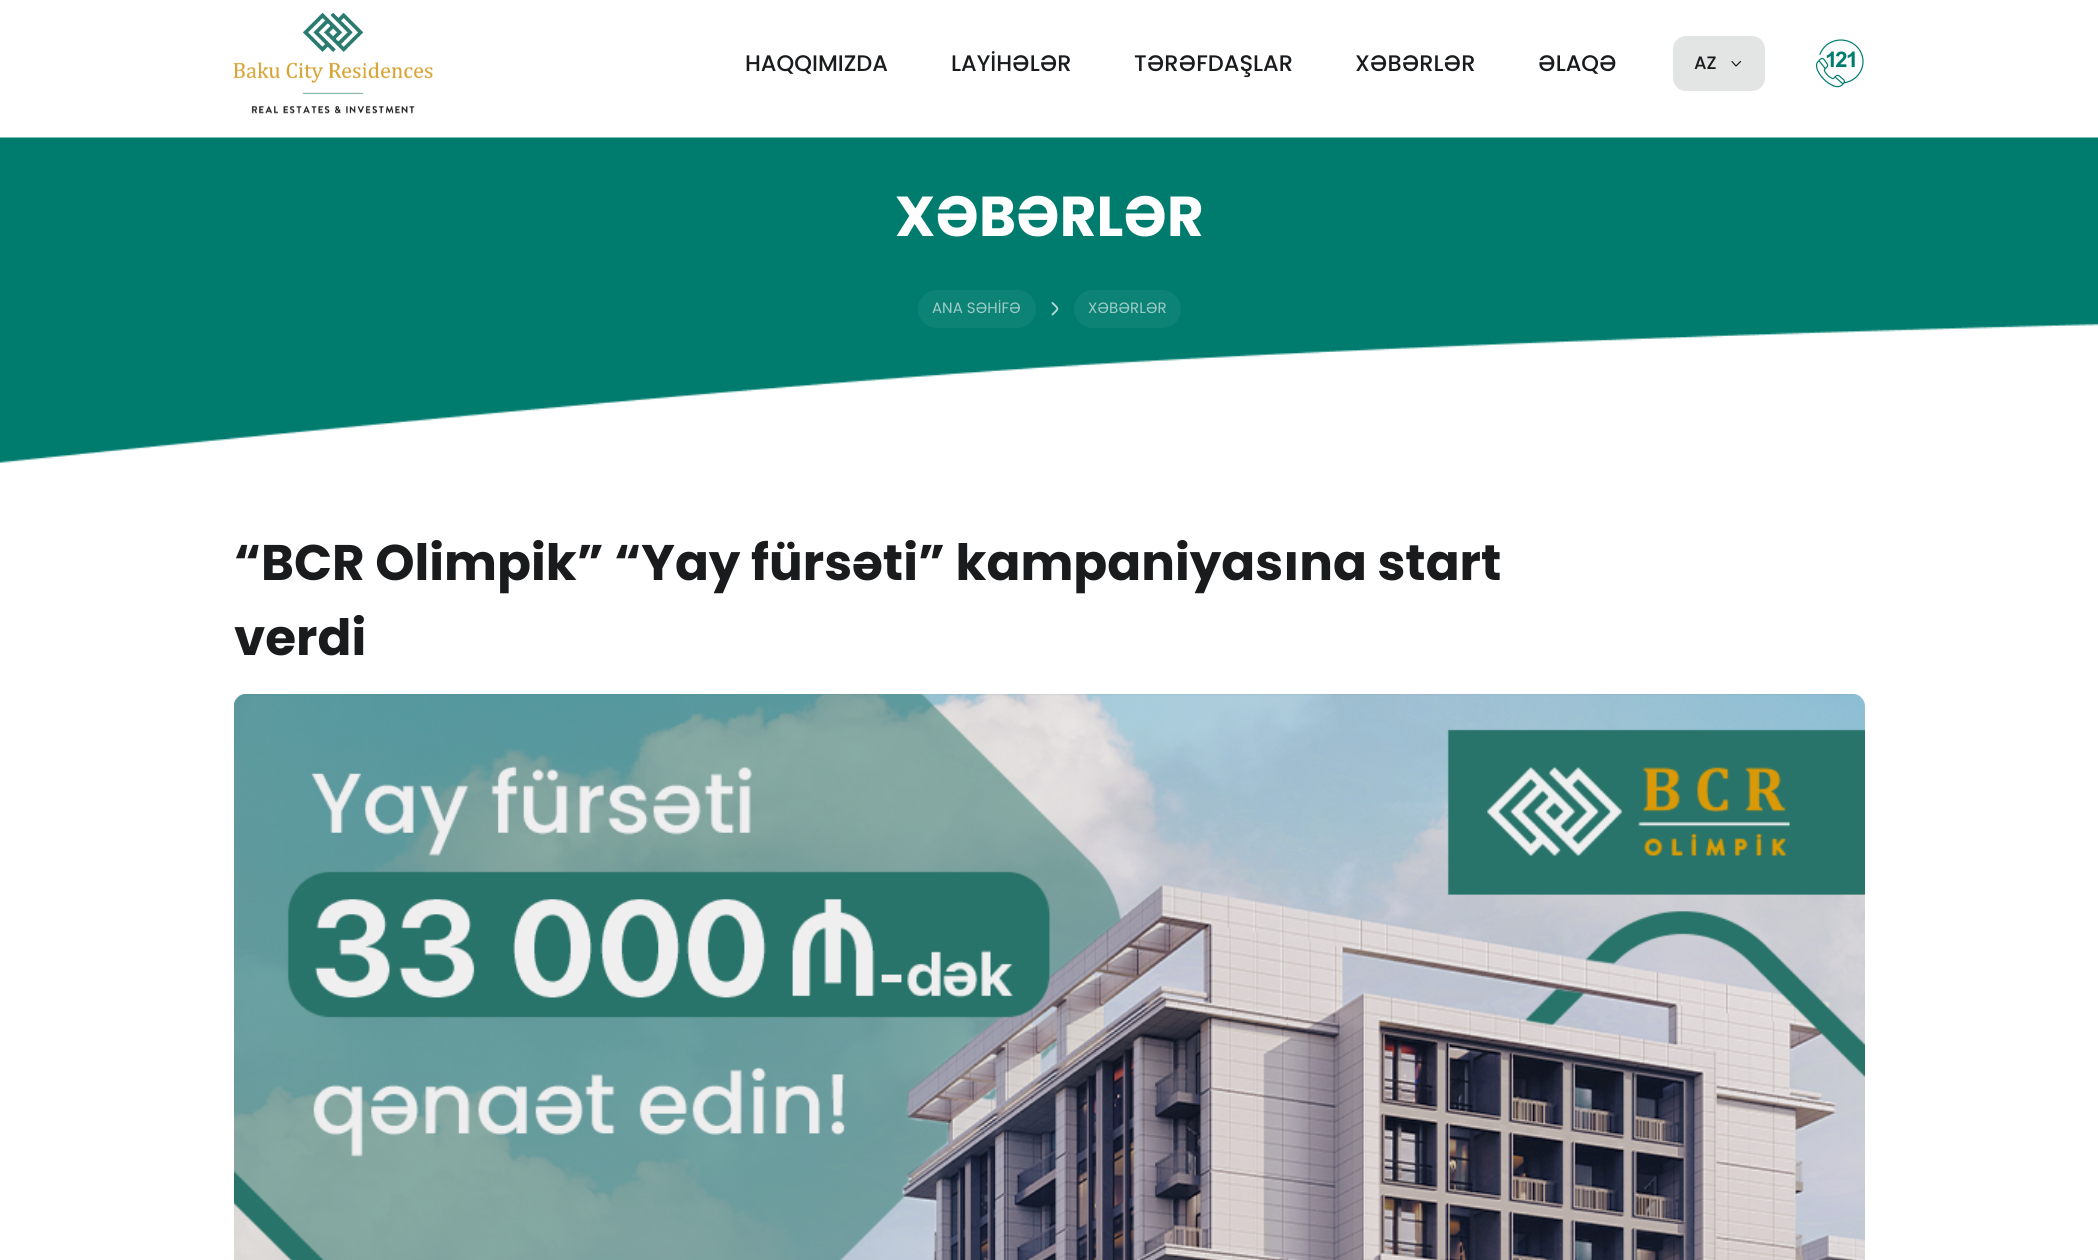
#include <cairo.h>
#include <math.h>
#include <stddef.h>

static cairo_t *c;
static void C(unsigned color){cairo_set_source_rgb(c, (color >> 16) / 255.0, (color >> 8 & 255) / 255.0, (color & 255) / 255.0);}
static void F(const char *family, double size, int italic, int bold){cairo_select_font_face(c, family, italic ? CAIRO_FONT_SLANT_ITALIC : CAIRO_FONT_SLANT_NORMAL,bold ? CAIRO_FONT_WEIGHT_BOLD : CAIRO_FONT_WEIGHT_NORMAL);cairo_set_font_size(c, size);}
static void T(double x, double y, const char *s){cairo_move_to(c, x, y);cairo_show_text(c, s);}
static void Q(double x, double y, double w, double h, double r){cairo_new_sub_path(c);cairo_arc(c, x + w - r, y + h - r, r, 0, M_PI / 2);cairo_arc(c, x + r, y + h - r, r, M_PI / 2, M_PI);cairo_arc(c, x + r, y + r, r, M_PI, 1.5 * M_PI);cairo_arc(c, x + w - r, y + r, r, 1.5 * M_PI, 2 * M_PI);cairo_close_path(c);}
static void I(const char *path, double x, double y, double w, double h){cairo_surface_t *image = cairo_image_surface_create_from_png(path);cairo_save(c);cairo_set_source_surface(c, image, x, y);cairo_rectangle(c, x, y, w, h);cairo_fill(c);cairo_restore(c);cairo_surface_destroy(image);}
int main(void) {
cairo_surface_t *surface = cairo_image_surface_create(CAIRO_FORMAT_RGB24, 2098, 1260);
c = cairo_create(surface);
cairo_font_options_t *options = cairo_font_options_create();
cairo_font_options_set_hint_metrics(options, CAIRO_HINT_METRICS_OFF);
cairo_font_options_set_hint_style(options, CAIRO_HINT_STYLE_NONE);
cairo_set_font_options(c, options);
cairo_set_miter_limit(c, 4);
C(0xffffff);
cairo_paint(c);
I("1.png",233,12,200,102);
F("Poppins Medium",22.5,0,0);
C(0x191b1d);
T(745,71,"HAQQIMIZDA");
T(951,71,"LAYİHƏLƏR");
T(1134,71,"TƏRƏFDAŞLAR");
T(1355,71,"XƏBƏRLƏR");
T(1538,71,"ƏLAQƏ");
C(0xe3e4e4);
Q(1673,36,92,55,13);
cairo_fill(c);
F("Poppins Medium",18,0,0);
C(0x191b1d);
T(1694,69,"AZ");
cairo_new_path(c);
cairo_move_to(c,1740.5,61.5);
cairo_line_to(c,1736,66);
cairo_line_to(c,1732,61.5);
cairo_set_line_width(c,1.2);
cairo_set_line_cap(c,CAIRO_LINE_CAP_ROUND);
cairo_set_line_join(c,CAIRO_LINE_JOIN_ROUND);
cairo_stroke(c);
I("2.png",1815,39,49,49);
I("3.png",0,137,2098,326);
F("Poppins",56.25,0,1);
C(0xffffff);
T(895,236,"XƏBƏRLƏR");
C(0x0d8376);
Q(918,290,118,38,19);
cairo_fill(c);
F("Poppins",15,0,0);
C(0x9ecdc8);
T(932,313,"ANA SƏHİFƏ");
cairo_new_path(c);
cairo_move_to(c,1052.5,314.5);
cairo_curve_to(c,1059,308,1059,309.5,1052.5,303);
C(0xb3d8d4);
cairo_set_line_width(c,1.9);
cairo_stroke(c);
C(0x0d8376);
Q(1074,290,107,38,19);
cairo_fill(c);
C(0x9ecdc8);
T(1088,313,"XƏBƏRLƏR");
F("Poppins",50,0,1);
C(0x191b1d);
T(234,580,"“BCR Olimpik” “Yay fürsəti” kampaniyasına start");
T(234,655,"verdi");
I("4.png",234,694,1631,566);
cairo_set_source_rgba(c,0.098,0.106,0.114,0.07);
cairo_new_path(c);
cairo_move_to(c,247,694);
cairo_curve_to(c,240,694,234,700,234,707);
cairo_line_to(c,234,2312);
cairo_curve_to(c,234,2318,237,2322,242,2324);
cairo_line_to(c,1865,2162);
cairo_line_to(c,1865,707);
cairo_curve_to(c,1865,700,1859,694,1852,694);
cairo_close_path(c);
cairo_fill(c);
cairo_surface_write_to_png(surface, "o.png");
cairo_font_options_destroy(options);
cairo_destroy(c);
cairo_surface_destroy(surface);
return 0;
}
